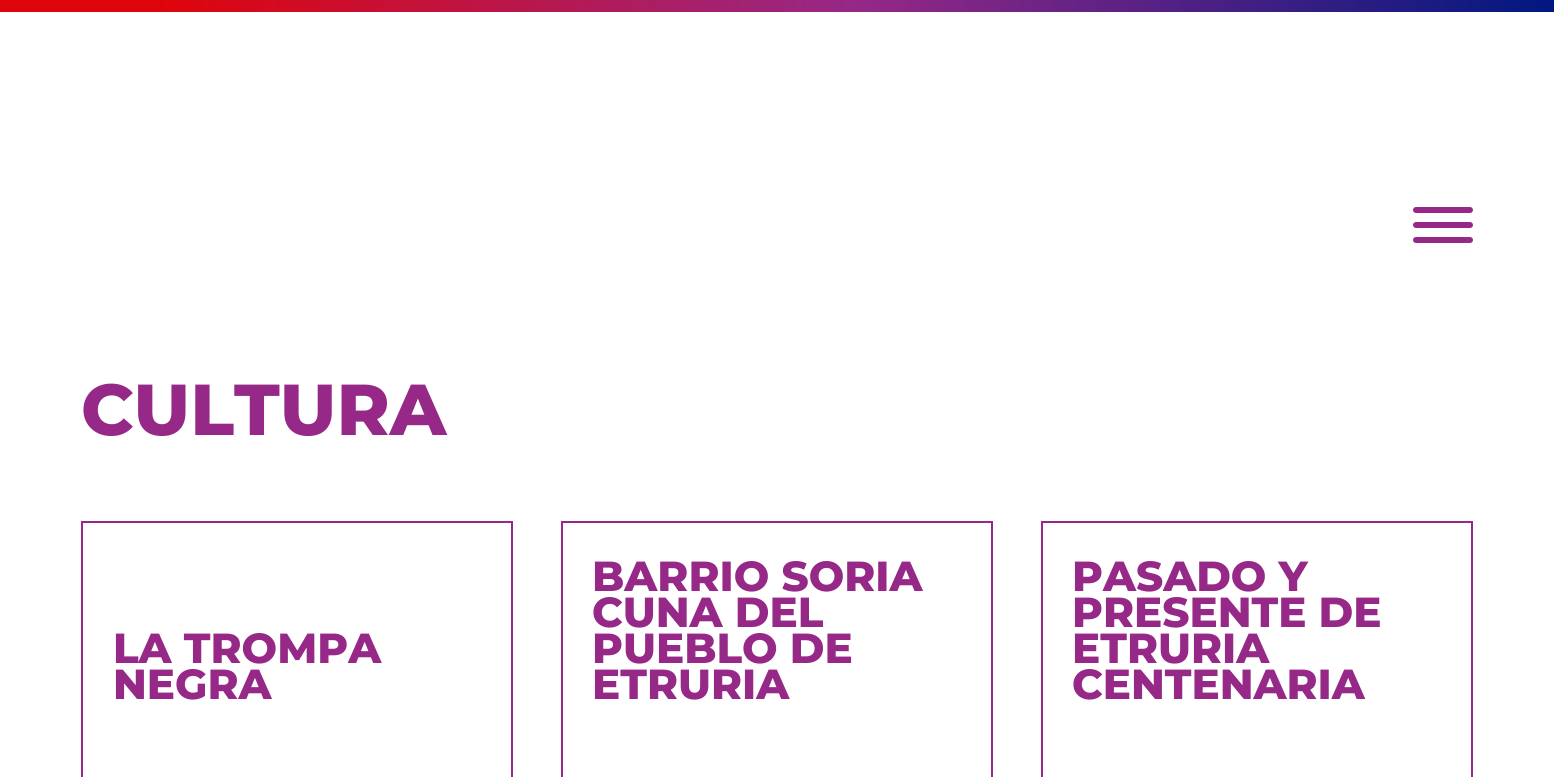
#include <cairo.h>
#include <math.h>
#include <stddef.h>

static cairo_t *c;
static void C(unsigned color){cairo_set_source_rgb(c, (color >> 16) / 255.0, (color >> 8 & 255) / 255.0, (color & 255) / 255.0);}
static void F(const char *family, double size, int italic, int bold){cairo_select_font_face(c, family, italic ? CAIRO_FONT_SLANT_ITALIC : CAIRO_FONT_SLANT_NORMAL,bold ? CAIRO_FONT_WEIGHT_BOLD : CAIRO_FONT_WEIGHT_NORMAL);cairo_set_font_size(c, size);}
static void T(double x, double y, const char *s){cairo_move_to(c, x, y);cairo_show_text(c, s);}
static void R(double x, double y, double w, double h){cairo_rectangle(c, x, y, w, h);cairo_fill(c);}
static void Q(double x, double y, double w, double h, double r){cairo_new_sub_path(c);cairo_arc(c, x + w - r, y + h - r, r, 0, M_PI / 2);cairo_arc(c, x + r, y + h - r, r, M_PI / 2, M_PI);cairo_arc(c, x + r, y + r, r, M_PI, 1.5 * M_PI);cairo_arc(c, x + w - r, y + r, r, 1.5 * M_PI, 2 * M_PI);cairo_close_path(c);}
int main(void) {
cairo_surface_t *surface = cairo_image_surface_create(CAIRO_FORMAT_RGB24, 1554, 777);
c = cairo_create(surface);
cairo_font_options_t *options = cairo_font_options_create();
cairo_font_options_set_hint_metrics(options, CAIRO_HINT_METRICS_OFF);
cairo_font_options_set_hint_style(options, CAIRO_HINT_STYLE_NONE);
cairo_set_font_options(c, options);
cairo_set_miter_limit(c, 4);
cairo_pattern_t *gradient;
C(0xffffff);
cairo_paint(c);
gradient = cairo_pattern_create_linear(0,6,1554,6);
cairo_pattern_add_color_stop_rgba(gradient,.1,0.875,0.016,0.043,1);
cairo_pattern_add_color_stop_rgba(gradient,.55,0.588,0.157,0.529,1);
cairo_pattern_add_color_stop_rgba(gradient,1,0,0.094,0.502,1);
cairo_set_source(c,gradient);
cairo_pattern_destroy(gradient);
R(0,0,1554,12);
C(0x962887);
Q(1413,222,60,6,3);
cairo_fill(c);
Q(1413,207,60,6,3);
cairo_fill(c);
Q(1413,237,60,6,3);
cairo_fill(c);
F("Montserrat ExtraBold",72,0,0);
T(81,435,"CULTURA");
cairo_rectangle(c,82,522,430,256);
cairo_stroke(c);
F("Montserrat ExtraBold",42,0,0);
T(113,663,"LA TROMPA");
T(113,699,"NEGRA");
cairo_rectangle(c,562,522,430,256);
cairo_stroke(c);
T(592,591,"BARRIO SORIA");
T(592,627,"CUNA DEL");
T(592,663,"PUEBLO DE");
T(592,699,"ETRURIA");
cairo_rectangle(c,1042,522,430,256);
cairo_stroke(c);
T(1072,591,"PASADO Y");
T(1072,627,"PRESENTE DE");
T(1072,663,"ETRURIA");
T(1072,699,"CENTENARIA");
cairo_surface_write_to_png(surface, "o.png");
cairo_font_options_destroy(options);
cairo_destroy(c);
cairo_surface_destroy(surface);
return 0;
}
